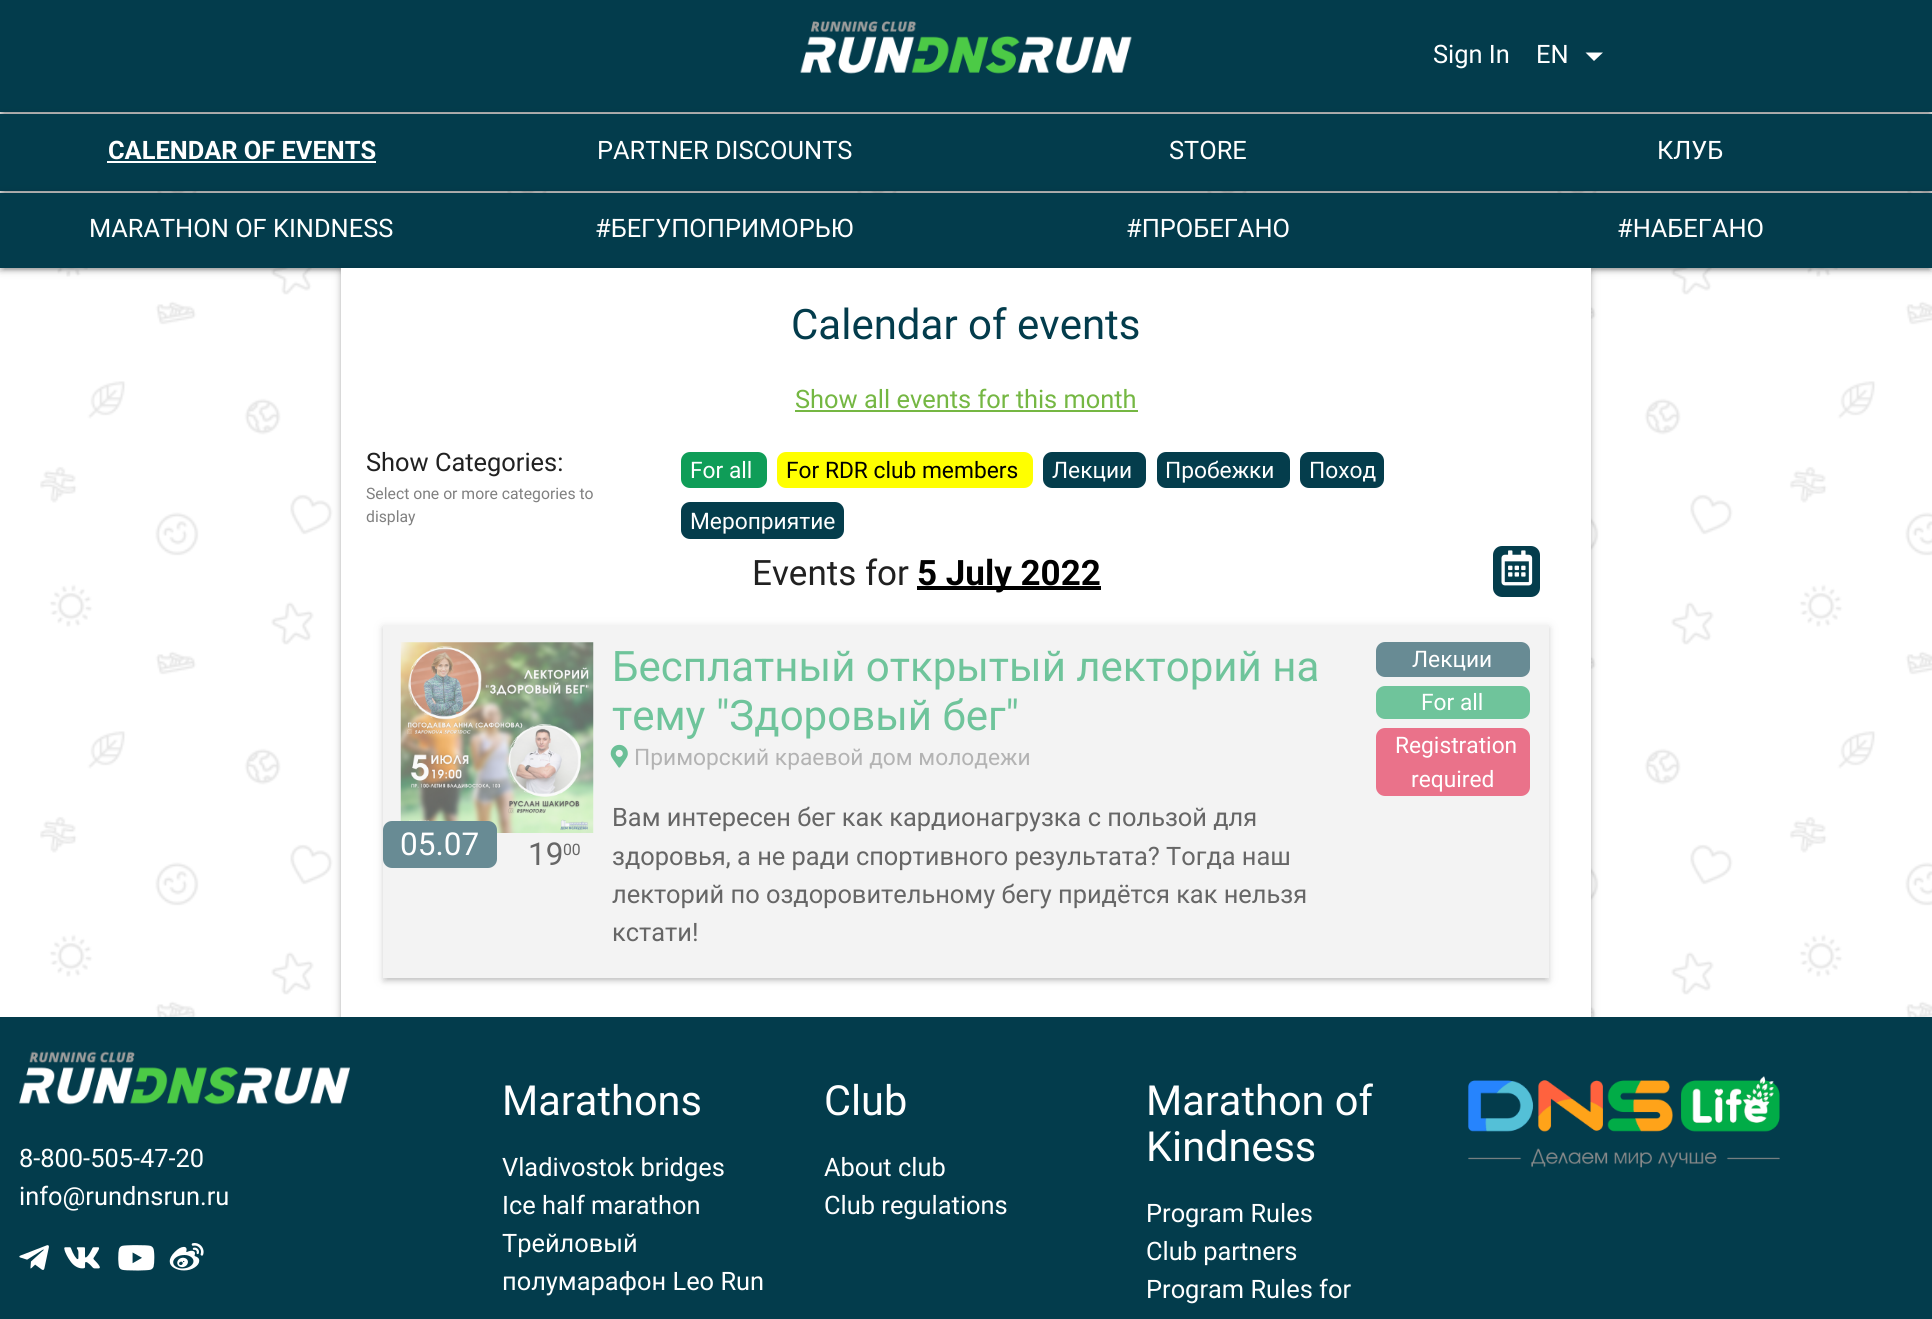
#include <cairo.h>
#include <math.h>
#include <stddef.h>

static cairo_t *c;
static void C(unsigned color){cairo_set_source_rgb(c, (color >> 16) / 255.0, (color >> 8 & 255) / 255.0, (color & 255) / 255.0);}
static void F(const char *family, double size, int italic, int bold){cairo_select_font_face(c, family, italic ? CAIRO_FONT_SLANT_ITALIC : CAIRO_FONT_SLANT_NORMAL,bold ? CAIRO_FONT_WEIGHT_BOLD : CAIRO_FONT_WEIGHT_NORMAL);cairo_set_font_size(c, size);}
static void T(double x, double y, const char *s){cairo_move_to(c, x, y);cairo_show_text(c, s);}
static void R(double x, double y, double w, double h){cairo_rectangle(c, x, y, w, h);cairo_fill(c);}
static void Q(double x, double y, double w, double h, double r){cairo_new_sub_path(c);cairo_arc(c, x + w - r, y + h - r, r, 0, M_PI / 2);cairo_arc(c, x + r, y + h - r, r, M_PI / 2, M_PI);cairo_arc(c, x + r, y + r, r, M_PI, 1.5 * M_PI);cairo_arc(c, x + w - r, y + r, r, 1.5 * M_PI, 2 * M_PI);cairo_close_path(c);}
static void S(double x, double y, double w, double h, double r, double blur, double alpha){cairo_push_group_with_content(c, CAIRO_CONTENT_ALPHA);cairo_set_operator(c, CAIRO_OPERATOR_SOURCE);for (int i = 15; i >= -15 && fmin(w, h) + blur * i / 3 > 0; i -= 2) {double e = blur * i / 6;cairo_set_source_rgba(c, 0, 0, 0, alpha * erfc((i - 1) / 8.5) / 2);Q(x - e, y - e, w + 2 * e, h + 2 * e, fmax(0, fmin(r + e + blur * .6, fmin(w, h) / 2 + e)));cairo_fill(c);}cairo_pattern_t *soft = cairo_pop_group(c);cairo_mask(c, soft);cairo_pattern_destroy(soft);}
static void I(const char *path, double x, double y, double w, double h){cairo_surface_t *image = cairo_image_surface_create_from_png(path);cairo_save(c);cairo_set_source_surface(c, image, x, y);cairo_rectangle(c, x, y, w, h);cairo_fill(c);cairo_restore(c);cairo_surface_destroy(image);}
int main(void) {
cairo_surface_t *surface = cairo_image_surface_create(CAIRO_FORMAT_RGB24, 1932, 1319);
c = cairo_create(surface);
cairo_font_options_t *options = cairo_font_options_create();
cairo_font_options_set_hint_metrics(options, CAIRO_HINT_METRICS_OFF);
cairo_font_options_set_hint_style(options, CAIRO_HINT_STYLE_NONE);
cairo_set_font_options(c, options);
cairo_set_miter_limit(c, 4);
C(0xffffff);
cairo_paint(c);
I("1.png",40,191,1892,826);
C(0x000000);
S(0,2,1932,112,0,4.5,.2);
S(4,9,1925,105,0,1,.12);
S(0,4,1932,112,0,2,.14);
C(0x033c4c);
R(0,0,1932,112);
I("2.png",800,21,332,53);
F("Roboto",25.4,0,0);
C(0xffffff);
T(1433,63,"Sign In");
T(1536,63,"EN");
cairo_new_path(c);
cairo_move_to(c,1585.5,52.5);
cairo_line_to(c,1603,52.5);
cairo_line_to(c,1594,61);
cairo_close_path(c);
cairo_fill(c);
C(0x000000);
S(0,116,1932,77,0,4.5,.2);
S(4,123,1925,70,0,1,.12);
S(0,117,1932,77,0,2,.14);
C(0x033c4c);
R(0,114,1932,77);
F("Roboto",25.4,0,1);
C(0xffffff);
T(108,159,"CALENDAR OF EVENTS");
R(107,161,269,2);
F("Roboto",25.4,0,0);
T(597,159,"PARTNER DISCOUNTS");
T(1169,159,"STORE");
T(1657,159,"КЛУБ");
C(0x000000);
S(0,194,1932,76,0,4.5,.2);
S(4,201,1925,69,0,1,.12);
S(0,196,1932,75,0,2,.14);
C(0x033c4c);
R(0,193,1932,75);
C(0xffffff);
T(89,237,"MARATHON OF KINDNESS");
T(595,237,"#БЕГУПОПРИМОРЬЮ");
T(1126,237,"#ПРОБЕГАНО");
T(1617,237,"#НАБЕГАНО");
C(0x000000);
S(341,270,1250,749,0,4.5,.2);
S(341,271,1250,749,0,2,.14);
C(0xffffff);
R(341,268,1250,749);
F("Roboto",42,0,0);
C(0x033c4c);
T(791,339,"Calendar of events");
F("Roboto",25.4,0,0);
C(0x75b743);
T(795,408,"Show all events for this month");
R(795,410,343,2);
C(0x212121);
T(366,471,"Show Categories:");
F("Roboto",15.75,0,0);
C(0x808080);
T(366,499,"Select one or more categories to");
T(366,522,"display");
C(0x0f9d58);
Q(681,452,86,36,9);
cairo_fill(c);
F("Roboto",22.75,0,0);
C(0xffffff);
T(690,478,"For all");
C(0xffff00);
Q(777,452,256,36,9);
cairo_fill(c);
C(0x000000);
T(786,478,"For RDR club members");
C(0x043d4c);
Q(1043,452,103,36,9);
cairo_fill(c);
C(0xffffff);
T(1052,478,"Лекции");
C(0x043d4c);
Q(1157,452,133,36,9);
cairo_fill(c);
C(0xffffff);
T(1165,478,"Пробежки");
C(0x043d4c);
Q(1300,452,84,36,9);
cairo_fill(c);
C(0xffffff);
T(1309,478,"Поход");
C(0x043d4c);
Q(681,502,163,37,9);
cairo_fill(c);
C(0xffffff);
T(690,529,"Мероприятие");
F("Roboto",35,0,0);
C(0x212121);
T(752,585,"Events for");
C(0x000000);
R(917,586,184,4);
F("Roboto",35,0,1);
T(917,585,"5 July 2022");
C(0x043d4c);
Q(1493,546,47,51,9);
cairo_fill(c);
I("3.png",1501,550,32,36);
C(0x666666);
S(383,627,1166,353,0,4.5,.2);
S(387,634,1158,346,0,1,.12);
S(383,628,1166,354,0,2,.14);
C(0xf3f3f3);
R(383,625,1166,353);
F("Roboto",42,0,0);
C(0x6fc49b);
T(612,681,"Бесплатный открытый лекторий на");
T(612,730,"тему \"Здоровый бег\"");
I("4.png",610,744,18,24);
F("Roboto",22.75,0,0);
C(0xb3b3b3);
T(634,765,"Приморский краевой дом молодежи");
F("Roboto",25.4,0,0);
C(0x666666);
T(612,826,"Вам интересен бег как кардионагрузка с пользой для");
T(612,865,"здоровья, а не ради спортивного результата? Тогда наш");
T(612,903,"лекторий по оздоровительному бегу придётся как нельзя");
T(612,941,"кстати!");
C(0x688b94);
Q(1376,642,154,35,9);
cairo_fill(c);
F("Roboto",22.75,0,0);
C(0xffffff);
T(1412,667,"Лекции");
C(0x6fc49b);
Q(1376,686,154,33,9);
cairo_fill(c);
C(0xffffff);
T(1421,710,"For all");
C(0xea728a);
Q(1376,728,154,68,9);
cairo_fill(c);
C(0xffffff);
T(1395,753,"Registration");
T(1411,787,"required");
I("5.png",400,642,194,191);
C(0x688b94);
Q(383,821,114,47,9);
cairo_fill(c);
F("Roboto",31.5,0,0);
C(0xffffff);
T(400,855,"05.07");
C(0x666666);
T(528,865,"19");
F("Roboto",15.75,0,0);
T(563,855,"00");
C(0x033c4c);
R(0,1017,1932,302);
I("6.png",19,1051,331,54);
F("Roboto",25.4,0,0);
C(0xffffff);
T(19,1167,"8-800-505-47-20");
T(19,1205,"info@rundnsrun.ru");
I("7.png",19,1245,30,25);
I("8.png",64,1247,36,22);
I("9.png",118,1245,37,26);
I("10.png",169,1243,35,28);
F("Roboto",41.5,0,0);
T(502,1115,"Marathons");
F("Roboto",25.4,0,0);
T(502,1176,"Vladivostok bridges");
T(502,1214,"Ice half marathon");
T(502,1252,"Трейловый");
T(502,1290,"полумарафон Leo Run");
F("Roboto",41.5,0,0);
T(824,1115,"Club");
F("Roboto",25.4,0,0);
T(824,1176,"About club");
T(824,1214,"Club regulations");
F("Roboto",41.5,0,0);
T(1146,1115,"Marathon of");
T(1146,1161,"Kindness");
F("Roboto",25.4,0,0);
T(1146,1222,"Program Rules");
T(1146,1260,"Club partners");
T(1146,1298,"Program Rules for");
I("11.png",1468,1076,312,92);
cairo_surface_write_to_png(surface, "o.png");
cairo_font_options_destroy(options);
cairo_destroy(c);
cairo_surface_destroy(surface);
return 0;
}
